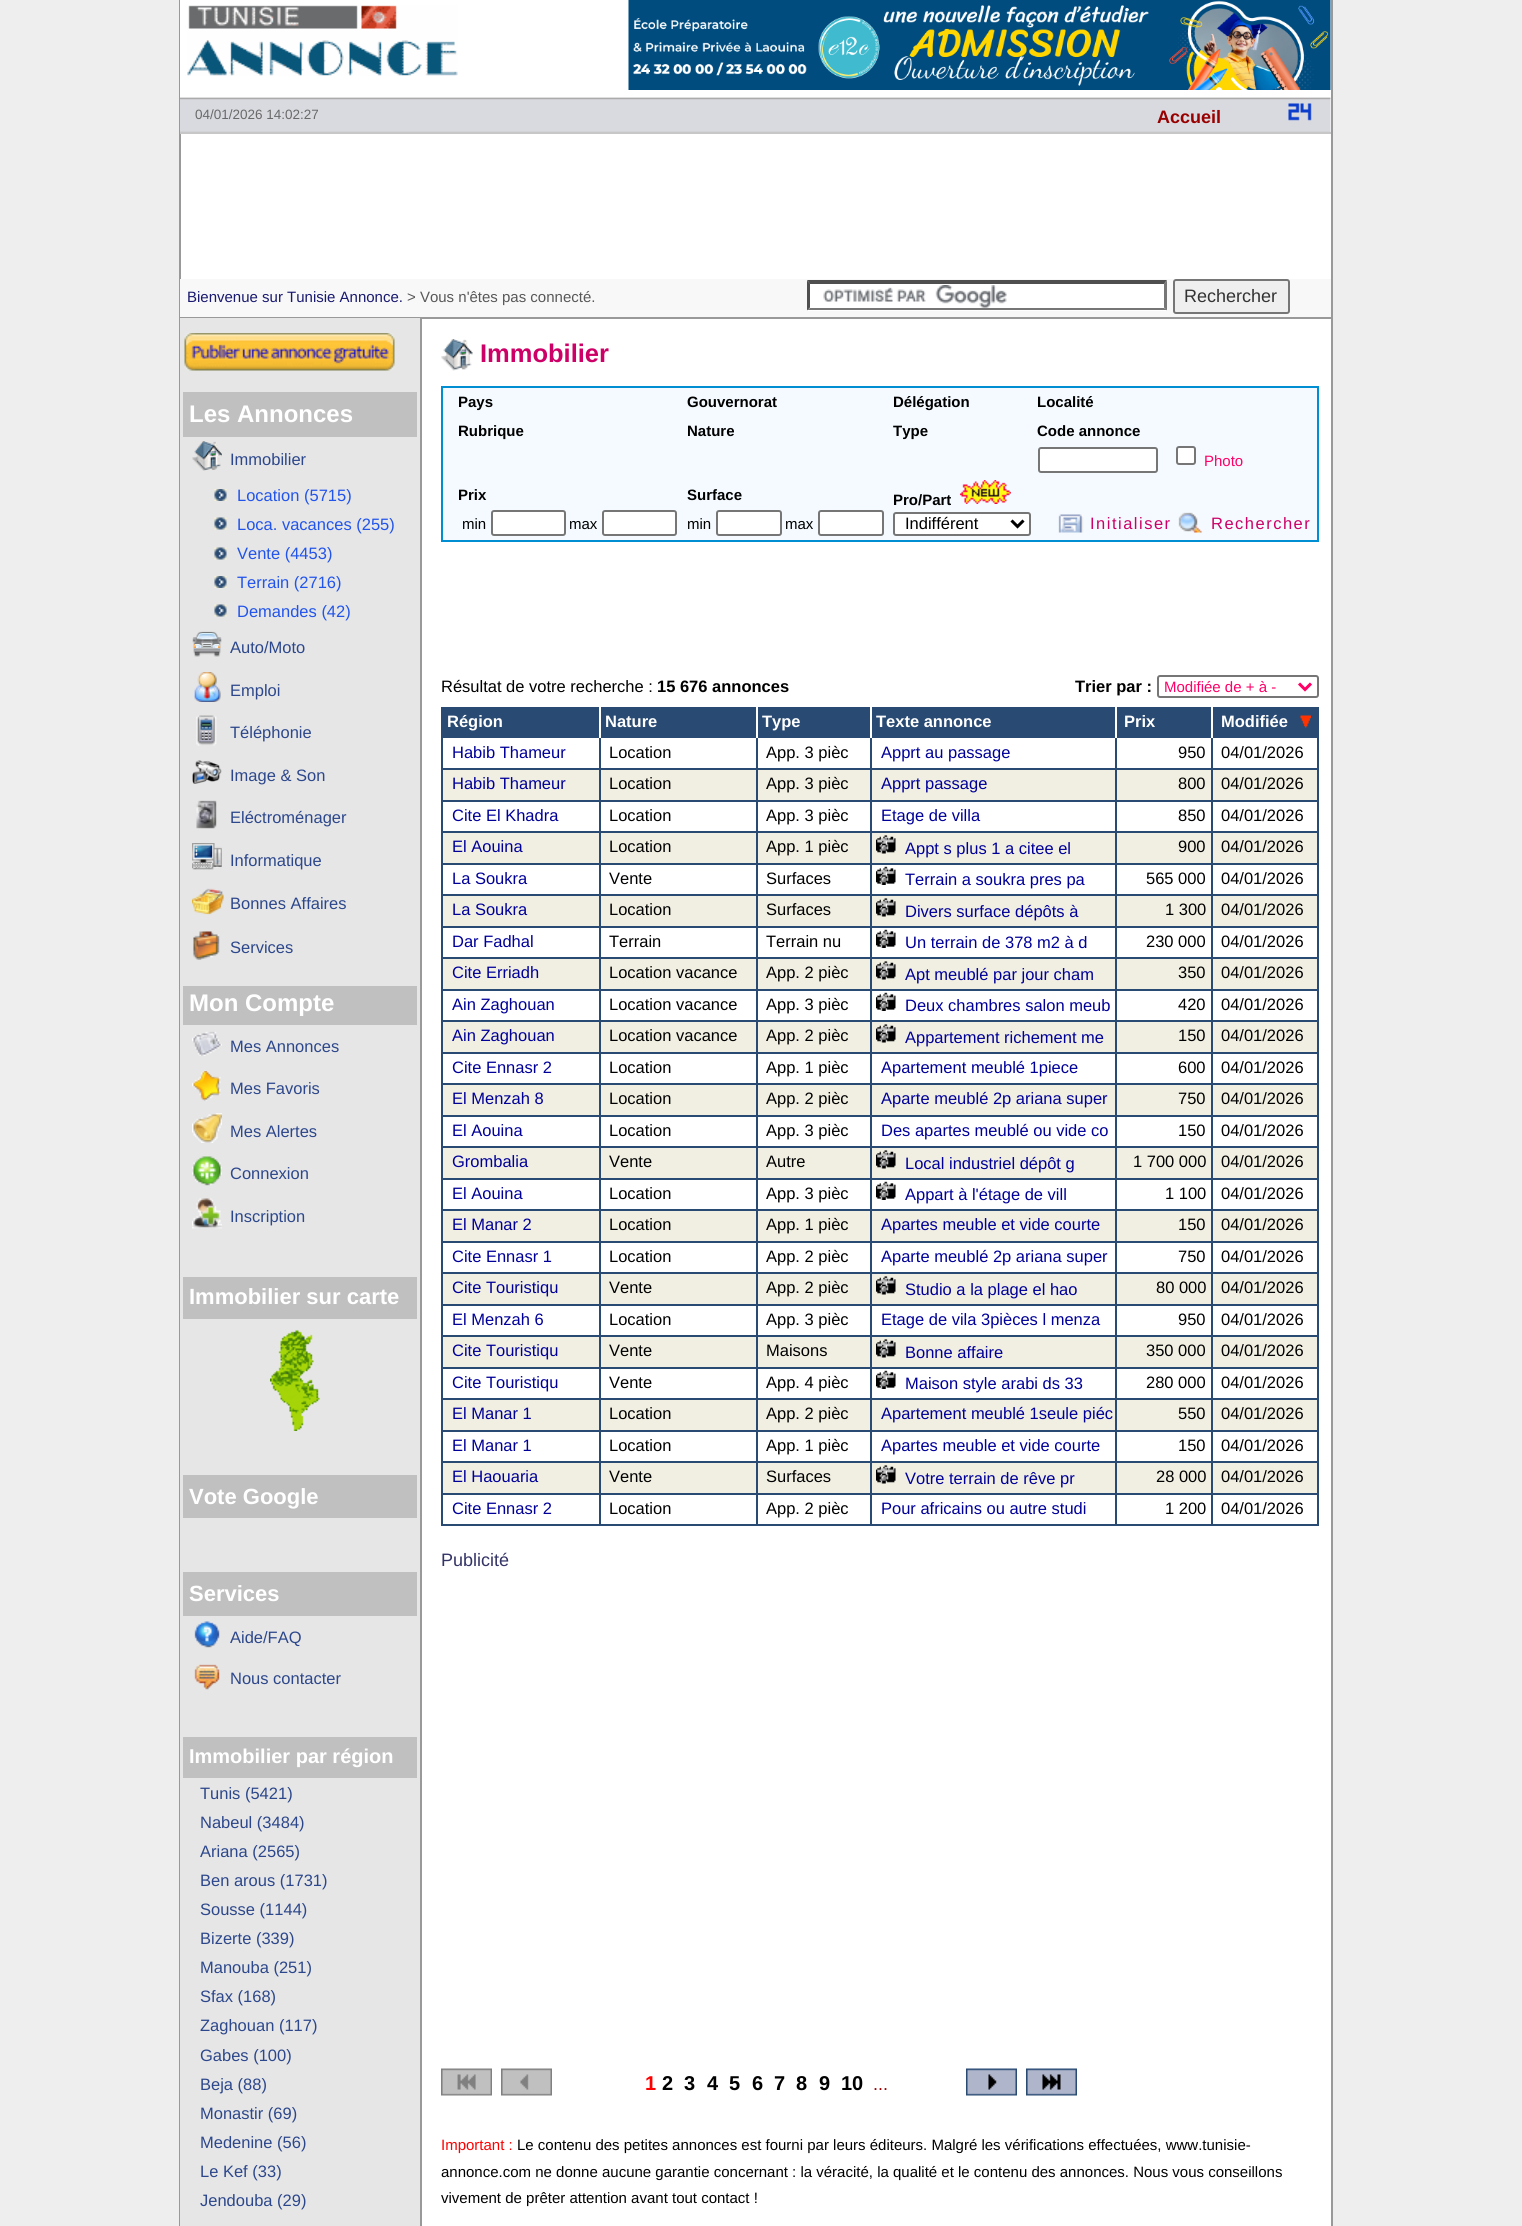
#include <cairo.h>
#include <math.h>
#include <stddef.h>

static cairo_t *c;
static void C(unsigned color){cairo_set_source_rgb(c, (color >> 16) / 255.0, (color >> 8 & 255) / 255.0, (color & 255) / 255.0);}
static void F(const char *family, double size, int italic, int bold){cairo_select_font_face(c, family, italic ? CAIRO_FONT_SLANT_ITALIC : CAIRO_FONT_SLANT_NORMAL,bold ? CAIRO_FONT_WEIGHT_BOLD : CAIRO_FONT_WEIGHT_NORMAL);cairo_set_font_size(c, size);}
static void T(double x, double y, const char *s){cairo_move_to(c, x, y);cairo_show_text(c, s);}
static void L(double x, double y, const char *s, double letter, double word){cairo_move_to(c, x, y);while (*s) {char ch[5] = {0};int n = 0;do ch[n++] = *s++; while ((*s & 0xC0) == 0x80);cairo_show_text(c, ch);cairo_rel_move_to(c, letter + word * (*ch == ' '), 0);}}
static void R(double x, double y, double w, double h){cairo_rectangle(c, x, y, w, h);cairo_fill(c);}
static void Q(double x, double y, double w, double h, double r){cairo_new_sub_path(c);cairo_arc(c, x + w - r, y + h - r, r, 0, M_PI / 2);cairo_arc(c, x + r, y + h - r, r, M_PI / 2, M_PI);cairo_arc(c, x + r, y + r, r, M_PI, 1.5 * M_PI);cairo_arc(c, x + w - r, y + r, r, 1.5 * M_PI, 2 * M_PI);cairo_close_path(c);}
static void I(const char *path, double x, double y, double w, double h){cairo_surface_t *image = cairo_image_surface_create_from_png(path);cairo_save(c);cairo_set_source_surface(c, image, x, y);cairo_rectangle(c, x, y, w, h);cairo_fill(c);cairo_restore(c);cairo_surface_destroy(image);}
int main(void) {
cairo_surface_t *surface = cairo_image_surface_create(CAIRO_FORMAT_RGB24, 1522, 2226);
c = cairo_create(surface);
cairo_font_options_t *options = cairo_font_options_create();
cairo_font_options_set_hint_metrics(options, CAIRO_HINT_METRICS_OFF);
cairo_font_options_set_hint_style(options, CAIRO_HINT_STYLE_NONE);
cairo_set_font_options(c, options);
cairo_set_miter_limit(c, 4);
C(0xeeeeee);
cairo_paint(c);
C(0xffffff);
R(181,0,1150,2226);
C(0x999999);
R(179,0,2,2226);
C(0xffffff);
R(180,0,1,98);
I("1.png",187,5,271,71);
I("2.png",628,0,703,90);
I("3.png",180,97,1151,35);
F("Liberation Sans",13.5,0,0);
C(0x696969);
T(195,119,"04/01/2026 14:02:27");
F("Liberation Sans",18,0,1);
C(0x990000);
T(1157,123,"Accueil");
I("4.png",1288,103,24,18);
C(0xc7c7c7);
R(180,132,1151,2);
C(0xf8f8f8);
R(180,279,1151,38);
F("Liberation Sans",15,0,0);
C(0x191970);
T(187,302,"Bienvenue sur Tunisie Annonce.");
C(0x585858);
T(407,302,"> Vous n'êtes pas connecté.");
C(0xffffff);
R(807,281,360,30);
I("5.png",823,285,184,23);
C(0x4f4f4f);
cairo_new_path(c);
cairo_move_to(c,807,280);
cairo_line_to(c,1167,280);
cairo_line_to(c,1164,284);
cairo_line_to(c,810,284);
cairo_close_path(c);
cairo_fill(c);
C(0x767676);
cairo_new_path(c);
cairo_move_to(c,1167,280.5);
cairo_line_to(c,1167,310.5);
cairo_line_to(c,1164,307.5);
cairo_line_to(c,1164,283.5);
cairo_close_path(c);
cairo_fill(c);
cairo_new_path(c);
cairo_move_to(c,1167,310);
cairo_line_to(c,807,310);
cairo_line_to(c,810,308);
cairo_line_to(c,1164,308);
cairo_close_path(c);
cairo_fill(c);
C(0x4f4f4f);
cairo_new_path(c);
cairo_move_to(c,807,310.5);
cairo_line_to(c,807,280.5);
cairo_line_to(c,810,283.5);
cairo_line_to(c,810,307.5);
cairo_close_path(c);
cairo_fill(c);
C(0xefefef);
Q(1174,280,115,33,2);
cairo_fill_preserve(c);
C(0x767676);
cairo_stroke(c);
F("Liberation Sans",18,0,0);
C(0x333333);
T(1184,302,"Rechercher");
C(0x999999);
R(180,317,1151,2);
C(0xe6e6e6);
R(180,318,240,1908);
I("6.png",184,333,211,38);
C(0xc0c0c0);
R(183,392,234,45);
F("Liberation Sans",24,0,1);
C(0xffffff);
T(189,422,"Les Annonces");
I("7.png",192,441,30,30);
F("Liberation Sans",16.5,0,0);
C(0x2c478b);
T(230,465,"Immobilier");
I("8.png",214,489,13,12);
C(0x2154eb);
T(237,501,"Location (5715)");
I("9.png",214,517,13,13);
T(237,530,"Loca. vacances (255)");
I("9.png",214,547,13,13);
T(237,559,"Vente (4453)");
I("8.png",214,576,13,12);
T(237,588,"Terrain (2716)");
I("9.png",214,604,13,13);
T(237,617,"Demandes (42)");
I("10.png",192,631,30,26);
C(0x2c478b);
T(230,653,"Auto/Moto");
I("11.png",194,672,27,30);
T(230,696,"Emploi");
I("12.png",196,715,21,31);
T(230,738,"Téléphonie");
I("13.png",192,760,30,24);
T(230,781,"Image & Son");
I("14.png",196,800,21,29);
T(230,823,"Eléctroménager");
I("15.png",192,843,30,27);
T(230,866,"Informatique");
I("16.png",192,888,32,27);
T(230,909,"Bonnes Affaires");
I("17.png",193,931,27,29);
T(230,953,"Services");
C(0xc0c0c0);
R(183,986,234,39);
F("Liberation Sans",24,0,1);
C(0xffffff);
T(189,1011,"Mon Compte");
I("18.png",192,1031,30,25);
F("Liberation Sans",16.5,0,0);
C(0x2c478b);
T(230,1052,"Mes Annonces");
I("19.png",192,1071,29,30);
T(230,1094,"Mes Favoris");
I("20.png",192,1113,30,30);
T(230,1137,"Mes Alertes");
I("21.png",192,1156,30,30);
T(230,1179,"Connexion");
I("22.png",192,1198,30,31);
T(230,1222,"Inscription");
C(0xc0c0c0);
R(183,1277,234,42);
F("Liberation Sans",22,0,1);
C(0xffffff);
T(189,1304,"Immobilier sur carte");
I("23.png",270,1330,50,101);
C(0xc0c0c0);
R(183,1475,234,43);
C(0xffffff);
T(189,1504,"Vote Google");
C(0xc0c0c0);
R(183,1572,234,44);
C(0xffffff);
T(189,1601,"Services");
I("24.png",194,1621,26,27);
F("Liberation Sans",16.5,0,0);
C(0x2c478b);
T(230,1643,"Aide/FAQ");
I("25.png",194,1664,26,26);
T(230,1684,"Nous contacter");
C(0xc0c0c0);
R(183,1737,234,41);
F("Liberation Sans",20,0,1);
C(0xffffff);
T(189,1763,"Immobilier par région");
F("Liberation Sans",16.5,0,0);
C(0x2c478b);
T(200,1799,"Tunis (5421)");
T(200,1828,"Nabeul (3484)");
T(200,1857,"Ariana (2565)");
T(200,1886,"Ben arous (1731)");
T(200,1915,"Sousse (1144)");
T(200,1944,"Bizerte (339)");
T(200,1973,"Manouba (251)");
T(200,2002,"Sfax (168)");
T(200,2031,"Zaghouan (117)");
T(200,2061,"Gabes (100)");
T(200,2090,"Beja (88)");
T(200,2119,"Monastir (69)");
T(200,2148,"Medenine (56)");
T(200,2177,"Le Kef (33)");
T(200,2206,"Jendouba (29)");
C(0x999999);
R(420,318,2,1908);
I("26.png",441,339,32,32);
F("Liberation Sans",25.5,0,1);
C(0xcc0066);
T(480,362,"Immobilier");
C(0xf4faff);
cairo_rectangle(c,442,387,876,154);
cairo_fill_preserve(c);
C(0x008ed2);
cairo_stroke(c);
F("Liberation Sans",15,0,1);
C(0x000000);
T(458,407,"Pays");
T(687,407,"Gouvernorat");
T(893,407,"Délégation");
T(1037,407,"Localité");
T(458,436,"Rubrique");
T(687,436,"Nature");
T(893,436,"Type");
T(1037,436,"Code annonce");
C(0xffffff);
Q(1039,448,118,24,2);
cairo_fill_preserve(c);
C(0x767676);
cairo_stroke(c);
C(0xffffff);
Q(1177,447,18,17,2);
cairo_fill_preserve(c);
C(0x767676);
cairo_stroke(c);
F("Liberation Sans",15,0,0);
C(0xff0066);
T(1204,466,"Photo");
F("Liberation Sans",15,0,1);
C(0x000000);
T(458,500,"Prix");
T(687,500,"Surface");
T(893,505,"Pro/Part");
I("27.png",960,480,51,24);
F("Liberation Sans",15,0,0);
T(462,529,"min");
C(0xffffff);
Q(492,511,73,24,2);
cairo_fill_preserve(c);
C(0x767676);
cairo_stroke(c);
C(0x000000);
T(569,529,"max");
C(0xffffff);
Q(603,511,73,24,2);
cairo_fill_preserve(c);
C(0x767676);
cairo_stroke(c);
C(0x000000);
T(687,529,"min");
C(0xffffff);
Q(717,511,64,24,2);
cairo_fill_preserve(c);
C(0x767676);
cairo_stroke(c);
C(0x000000);
T(785,529,"max");
C(0xffffff);
Q(819,511,64,24,2);
cairo_fill_preserve(c);
C(0x767676);
cairo_stroke(c);
C(0xffffff);
Q(894,513,136,22,2);
cairo_fill_preserve(c);
C(0x767676);
cairo_stroke(c);
cairo_new_path(c);
cairo_move_to(c,1011.5,520.5);
cairo_line_to(c,1017.5,526.5);
cairo_line_to(c,1023.5,520.5);
C(0x000000);
cairo_set_line_width(c,3);
cairo_stroke(c);
F("Liberation Sans",16.5,0,0);
T(905,529,"Indifférent");
I("28.png",1058,514,26,19);
C(0xcc0066);
L(1090,529,"Initialiser",1.5,0);
I("29.png",1178,512,25,21);
L(1211,529,"Rechercher",1.5,0);
C(0x000000);
T(441,692,"Résultat de votre recherche :");
F("Liberation Sans",16.5,0,1);
T(657,692,"15 676 annonces");
T(1075,692,"Trier par :");
Q(1158,676,160,21,2);
C(0x767676);
cairo_set_line_width(c,2);
cairo_stroke(c);
cairo_new_path(c);
cairo_move_to(c,1299,683.5);
cairo_line_to(c,1305,689.5);
cairo_line_to(c,1311,683.5);
C(0xff0066);
cairo_set_line_width(c,3);
cairo_stroke(c);
F("Liberation Sans",15,0,0);
T(1164,692,"Modifiée de + à -");
C(0x294a73);
R(441,707,878,31);
F("Liberation Sans",16.5,0,1);
C(0xffffff);
T(447,727,"Région");
R(599,707,2,31);
T(605,727,"Nature");
R(756,707,2,31);
T(762,727,"Type");
R(870,707,2,31);
T(876,727,"Texte annonce");
R(1115,707,2,31);
T(1124,727,"Prix");
R(1211,707,2,31);
T(1221,727,"Modifiée");
I("30.png",1300,715,11,13);
C(0x294a73);
R(441,738,2,30);
F("Liberation Sans",16.5,0,0);
C(0x000099);
T(452,758,"Habib Thameur");
C(0x294a73);
R(599,738,2,30);
C(0x000000);
T(609,758,"Location");
C(0x294a73);
R(756,738,2,30);
C(0x000000);
T(766,758,"App. 3 pièc");
C(0x294a73);
R(870,738,2,30);
C(0x000099);
T(881,758,"Apprt au passage");
C(0x294a73);
R(1115,738,2,30);
C(0x000000);
T(1178,758,"950");
C(0x294a73);
R(1211,738,2,30);
C(0x000000);
T(1221,758,"04/01/2026");
C(0x294a73);
R(1317,738,2,30);
R(441,768,878,2);
C(0xf1efe2);
R(443,770,874,30);
C(0x294a73);
R(441,770,2,30);
C(0x000099);
T(452,789,"Habib Thameur");
C(0x294a73);
R(599,770,2,30);
C(0x000000);
T(609,789,"Location");
C(0x294a73);
R(756,770,2,30);
C(0x000000);
T(766,789,"App. 3 pièc");
C(0x294a73);
R(870,770,2,30);
C(0x000099);
T(881,789,"Apprt passage");
C(0x294a73);
R(1115,770,2,30);
C(0x000000);
T(1178,789,"800");
C(0x294a73);
R(1211,770,2,30);
C(0x000000);
T(1221,789,"04/01/2026");
C(0x294a73);
R(1317,770,2,30);
R(441,800,878,2);
R(441,801,2,30);
C(0x000099);
T(452,821,"Cite El Khadra");
C(0x294a73);
R(599,801,2,30);
C(0x000000);
T(609,821,"Location");
C(0x294a73);
R(756,801,2,30);
C(0x000000);
T(766,821,"App. 3 pièc");
C(0x294a73);
R(870,801,2,30);
C(0x000099);
T(881,821,"Etage de villa");
C(0x294a73);
R(1115,801,2,30);
C(0x000000);
T(1178,821,"850");
C(0x294a73);
R(1211,801,2,30);
C(0x000000);
T(1221,821,"04/01/2026");
C(0x294a73);
R(1317,801,2,30);
R(441,831,878,2);
C(0xf1efe2);
R(443,833,874,30);
C(0x294a73);
R(441,833,2,30);
C(0x000099);
T(452,852,"El Aouina");
C(0x294a73);
R(599,833,2,30);
C(0x000000);
T(609,852,"Location");
C(0x294a73);
R(756,833,2,30);
C(0x000000);
T(766,852,"App. 1 pièc");
C(0x294a73);
R(870,833,2,30);
I("31.png",876,835,20,19);
C(0x000099);
T(905,854,"Appt s plus 1 a citee el");
C(0x294a73);
R(1115,833,2,30);
C(0x000000);
T(1178,852,"900");
C(0x294a73);
R(1211,833,2,30);
C(0x000000);
T(1221,852,"04/01/2026");
C(0x294a73);
R(1317,833,2,30);
R(441,863,878,2);
R(441,864,2,30);
C(0x000099);
T(452,884,"La Soukra");
C(0x294a73);
R(599,864,2,30);
C(0x000000);
T(609,884,"Vente");
C(0x294a73);
R(756,864,2,30);
C(0x000000);
T(766,884,"Surfaces");
C(0x294a73);
R(870,864,2,30);
I("32.png",876,866,20,19);
C(0x000099);
T(905,885,"Terrain a soukra pres pa");
C(0x294a73);
R(1115,864,2,30);
C(0x000000);
T(1146,884,"565 000");
C(0x294a73);
R(1211,864,2,30);
C(0x000000);
T(1221,884,"04/01/2026");
C(0x294a73);
R(1317,864,2,30);
R(441,894,878,2);
C(0xf1efe2);
R(443,896,874,30);
C(0x294a73);
R(441,896,2,30);
C(0x000099);
T(452,915,"La Soukra");
C(0x294a73);
R(599,896,2,30);
C(0x000000);
T(609,915,"Location");
C(0x294a73);
R(756,896,2,30);
C(0x000000);
T(766,915,"Surfaces");
C(0x294a73);
R(870,896,2,30);
I("31.png",876,898,20,19);
C(0x000099);
T(905,917,"Divers surface dépôts à");
C(0x294a73);
R(1115,896,2,30);
C(0x000000);
T(1165,915,"1 300");
C(0x294a73);
R(1211,896,2,30);
C(0x000000);
T(1221,915,"04/01/2026");
C(0x294a73);
R(1317,896,2,30);
R(441,926,878,2);
R(441,927,2,30);
C(0x000099);
T(452,947,"Dar Fadhal");
C(0x294a73);
R(599,927,2,30);
C(0x000000);
T(609,947,"Terrain");
C(0x294a73);
R(756,927,2,30);
C(0x000000);
T(766,947,"Terrain nu");
C(0x294a73);
R(870,927,2,30);
I("32.png",876,929,20,19);
C(0x000099);
T(905,948,"Un terrain de 378 m2 à d");
C(0x294a73);
R(1115,927,2,30);
C(0x000000);
T(1146,947,"230 000");
C(0x294a73);
R(1211,927,2,30);
C(0x000000);
T(1221,947,"04/01/2026");
C(0x294a73);
R(1317,927,2,30);
R(441,957,878,2);
C(0xf1efe2);
R(443,959,874,30);
C(0x294a73);
R(441,959,2,30);
C(0x000099);
T(452,978,"Cite Erriadh");
C(0x294a73);
R(599,959,2,30);
C(0x000000);
T(609,978,"Location vacance");
C(0x294a73);
R(756,959,2,30);
C(0x000000);
T(766,978,"App. 2 pièc");
C(0x294a73);
R(870,959,2,30);
I("31.png",876,961,20,19);
C(0x000099);
T(905,980,"Apt meublé par jour cham");
C(0x294a73);
R(1115,959,2,30);
C(0x000000);
T(1178,978,"350");
C(0x294a73);
R(1211,959,2,30);
C(0x000000);
T(1221,978,"04/01/2026");
C(0x294a73);
R(1317,959,2,30);
R(441,989,878,2);
R(441,990,2,30);
C(0x000099);
T(452,1010,"Ain Zaghouan");
C(0x294a73);
R(599,990,2,30);
C(0x000000);
T(609,1010,"Location vacance");
C(0x294a73);
R(756,990,2,30);
C(0x000000);
T(766,1010,"App. 3 pièc");
C(0x294a73);
R(870,990,2,30);
I("32.png",876,992,20,19);
C(0x000099);
T(905,1011,"Deux chambres salon meub");
C(0x294a73);
R(1115,990,2,30);
C(0x000000);
T(1178,1010,"420");
C(0x294a73);
R(1211,990,2,30);
C(0x000000);
T(1221,1010,"04/01/2026");
C(0x294a73);
R(1317,990,2,30);
R(441,1020,878,2);
C(0xf1efe2);
R(443,1022,874,30);
C(0x294a73);
R(441,1022,2,30);
C(0x000099);
T(452,1041,"Ain Zaghouan");
C(0x294a73);
R(599,1022,2,30);
C(0x000000);
T(609,1041,"Location vacance");
C(0x294a73);
R(756,1022,2,30);
C(0x000000);
T(766,1041,"App. 2 pièc");
C(0x294a73);
R(870,1022,2,30);
I("31.png",876,1024,20,19);
C(0x000099);
T(905,1043,"Appartement richement me");
C(0x294a73);
R(1115,1022,2,30);
C(0x000000);
T(1178,1041,"150");
C(0x294a73);
R(1211,1022,2,30);
C(0x000000);
T(1221,1041,"04/01/2026");
C(0x294a73);
R(1317,1022,2,30);
R(441,1052,878,2);
R(441,1053,2,30);
C(0x000099);
T(452,1073,"Cite Ennasr 2");
C(0x294a73);
R(599,1053,2,30);
C(0x000000);
T(609,1073,"Location");
C(0x294a73);
R(756,1053,2,30);
C(0x000000);
T(766,1073,"App. 1 pièc");
C(0x294a73);
R(870,1053,2,30);
C(0x000099);
T(881,1073,"Apartement meublé 1piece");
C(0x294a73);
R(1115,1053,2,30);
C(0x000000);
T(1178,1073,"600");
C(0x294a73);
R(1211,1053,2,30);
C(0x000000);
T(1221,1073,"04/01/2026");
C(0x294a73);
R(1317,1053,2,30);
R(441,1083,878,2);
C(0xf1efe2);
R(443,1085,874,30);
C(0x294a73);
R(441,1085,2,30);
C(0x000099);
T(452,1104,"El Menzah 8");
C(0x294a73);
R(599,1085,2,30);
C(0x000000);
T(609,1104,"Location");
C(0x294a73);
R(756,1085,2,30);
C(0x000000);
T(766,1104,"App. 2 pièc");
C(0x294a73);
R(870,1085,2,30);
C(0x000099);
T(881,1104,"Aparte meublé 2p ariana super");
C(0x294a73);
R(1115,1085,2,30);
C(0x000000);
T(1178,1104,"750");
C(0x294a73);
R(1211,1085,2,30);
C(0x000000);
T(1221,1104,"04/01/2026");
C(0x294a73);
R(1317,1085,2,30);
R(441,1115,878,2);
R(441,1116,2,30);
C(0x000099);
T(452,1136,"El Aouina");
C(0x294a73);
R(599,1116,2,30);
C(0x000000);
T(609,1136,"Location");
C(0x294a73);
R(756,1116,2,30);
C(0x000000);
T(766,1136,"App. 3 pièc");
C(0x294a73);
R(870,1116,2,30);
C(0x000099);
T(881,1136,"Des apartes meublé ou vide co");
C(0x294a73);
R(1115,1116,2,30);
C(0x000000);
T(1178,1136,"150");
C(0x294a73);
R(1211,1116,2,30);
C(0x000000);
T(1221,1136,"04/01/2026");
C(0x294a73);
R(1317,1116,2,30);
R(441,1146,878,2);
C(0xf1efe2);
R(443,1148,874,30);
C(0x294a73);
R(441,1148,2,30);
C(0x000099);
T(452,1167,"Grombalia");
C(0x294a73);
R(599,1148,2,30);
C(0x000000);
T(609,1167,"Vente");
C(0x294a73);
R(756,1148,2,30);
C(0x000000);
T(766,1167,"Autre");
C(0x294a73);
R(870,1148,2,30);
I("31.png",876,1150,20,19);
C(0x000099);
T(905,1169,"Local industriel dépôt g");
C(0x294a73);
R(1115,1148,2,30);
C(0x000000);
T(1133,1167,"1 700 000");
C(0x294a73);
R(1211,1148,2,30);
C(0x000000);
T(1221,1167,"04/01/2026");
C(0x294a73);
R(1317,1148,2,30);
R(441,1178,878,2);
R(441,1179,2,30);
C(0x000099);
T(452,1199,"El Aouina");
C(0x294a73);
R(599,1179,2,30);
C(0x000000);
T(609,1199,"Location");
C(0x294a73);
R(756,1179,2,30);
C(0x000000);
T(766,1199,"App. 3 pièc");
C(0x294a73);
R(870,1179,2,30);
I("32.png",876,1181,20,19);
C(0x000099);
T(905,1200,"Appart à l'étage de vill");
C(0x294a73);
R(1115,1179,2,30);
C(0x000000);
T(1165,1199,"1 100");
C(0x294a73);
R(1211,1179,2,30);
C(0x000000);
T(1221,1199,"04/01/2026");
C(0x294a73);
R(1317,1179,2,30);
R(441,1209,878,2);
C(0xf1efe2);
R(443,1211,874,30);
C(0x294a73);
R(441,1211,2,30);
C(0x000099);
T(452,1230,"El Manar 2");
C(0x294a73);
R(599,1211,2,30);
C(0x000000);
T(609,1230,"Location");
C(0x294a73);
R(756,1211,2,30);
C(0x000000);
T(766,1230,"App. 1 pièc");
C(0x294a73);
R(870,1211,2,30);
C(0x000099);
T(881,1230,"Apartes meuble et vide courte");
C(0x294a73);
R(1115,1211,2,30);
C(0x000000);
T(1178,1230,"150");
C(0x294a73);
R(1211,1211,2,30);
C(0x000000);
T(1221,1230,"04/01/2026");
C(0x294a73);
R(1317,1211,2,30);
R(441,1241,878,2);
R(441,1242,2,30);
C(0x000099);
T(452,1262,"Cite Ennasr 1");
C(0x294a73);
R(599,1242,2,30);
C(0x000000);
T(609,1262,"Location");
C(0x294a73);
R(756,1242,2,30);
C(0x000000);
T(766,1262,"App. 2 pièc");
C(0x294a73);
R(870,1242,2,30);
C(0x000099);
T(881,1262,"Aparte meublé 2p ariana super");
C(0x294a73);
R(1115,1242,2,30);
C(0x000000);
T(1178,1262,"750");
C(0x294a73);
R(1211,1242,2,30);
C(0x000000);
T(1221,1262,"04/01/2026");
C(0x294a73);
R(1317,1242,2,30);
R(441,1272,878,2);
C(0xf1efe2);
R(443,1274,874,30);
C(0x294a73);
R(441,1274,2,30);
C(0x000099);
T(452,1293,"Cite Touristiqu");
C(0x294a73);
R(599,1274,2,30);
C(0x000000);
T(609,1293,"Vente");
C(0x294a73);
R(756,1274,2,30);
C(0x000000);
T(766,1293,"App. 2 pièc");
C(0x294a73);
R(870,1274,2,30);
I("31.png",876,1276,20,19);
C(0x000099);
T(905,1295,"Studio a la plage el hao");
C(0x294a73);
R(1115,1274,2,30);
C(0x000000);
T(1156,1293,"80 000");
C(0x294a73);
R(1211,1274,2,30);
C(0x000000);
T(1221,1293,"04/01/2026");
C(0x294a73);
R(1317,1274,2,30);
R(441,1304,878,2);
R(441,1305,2,30);
C(0x000099);
T(452,1325,"El Menzah 6");
C(0x294a73);
R(599,1305,2,30);
C(0x000000);
T(609,1325,"Location");
C(0x294a73);
R(756,1305,2,30);
C(0x000000);
T(766,1325,"App. 3 pièc");
C(0x294a73);
R(870,1305,2,30);
C(0x000099);
T(881,1325,"Etage de vila 3pièces l menza");
C(0x294a73);
R(1115,1305,2,30);
C(0x000000);
T(1178,1325,"950");
C(0x294a73);
R(1211,1305,2,30);
C(0x000000);
T(1221,1325,"04/01/2026");
C(0x294a73);
R(1317,1305,2,30);
R(441,1335,878,2);
C(0xf1efe2);
R(443,1337,874,30);
C(0x294a73);
R(441,1337,2,30);
C(0x000099);
T(452,1356,"Cite Touristiqu");
C(0x294a73);
R(599,1337,2,30);
C(0x000000);
T(609,1356,"Vente");
C(0x294a73);
R(756,1337,2,30);
C(0x000000);
T(766,1356,"Maisons");
C(0x294a73);
R(870,1337,2,30);
I("31.png",876,1339,20,19);
C(0x000099);
T(905,1358,"Bonne affaire");
C(0x294a73);
R(1115,1337,2,30);
C(0x000000);
T(1146,1356,"350 000");
C(0x294a73);
R(1211,1337,2,30);
C(0x000000);
T(1221,1356,"04/01/2026");
C(0x294a73);
R(1317,1337,2,30);
R(441,1367,878,2);
R(441,1368,2,30);
C(0x000099);
T(452,1388,"Cite Touristiqu");
C(0x294a73);
R(599,1368,2,30);
C(0x000000);
T(609,1388,"Vente");
C(0x294a73);
R(756,1368,2,30);
C(0x000000);
T(766,1388,"App. 4 pièc");
C(0x294a73);
R(870,1368,2,30);
I("32.png",876,1370,20,19);
C(0x000099);
T(905,1389,"Maison style arabi ds 33");
C(0x294a73);
R(1115,1368,2,30);
C(0x000000);
T(1146,1388,"280 000");
C(0x294a73);
R(1211,1368,2,30);
C(0x000000);
T(1221,1388,"04/01/2026");
C(0x294a73);
R(1317,1368,2,30);
R(441,1398,878,2);
C(0xf1efe2);
R(443,1400,874,30);
C(0x294a73);
R(441,1400,2,30);
C(0x000099);
T(452,1419,"El Manar 1");
C(0x294a73);
R(599,1400,2,30);
C(0x000000);
T(609,1419,"Location");
C(0x294a73);
R(756,1400,2,30);
C(0x000000);
T(766,1419,"App. 2 pièc");
C(0x294a73);
R(870,1400,2,30);
C(0x000099);
T(881,1419,"Apartement meublé 1seule piéc");
C(0x294a73);
R(1115,1400,2,30);
C(0x000000);
T(1178,1419,"550");
C(0x294a73);
R(1211,1400,2,30);
C(0x000000);
T(1221,1419,"04/01/2026");
C(0x294a73);
R(1317,1400,2,30);
R(441,1430,878,2);
R(441,1431,2,30);
C(0x000099);
T(452,1451,"El Manar 1");
C(0x294a73);
R(599,1431,2,30);
C(0x000000);
T(609,1451,"Location");
C(0x294a73);
R(756,1431,2,30);
C(0x000000);
T(766,1451,"App. 1 pièc");
C(0x294a73);
R(870,1431,2,30);
C(0x000099);
T(881,1451,"Apartes meuble et vide courte");
C(0x294a73);
R(1115,1431,2,30);
C(0x000000);
T(1178,1451,"150");
C(0x294a73);
R(1211,1431,2,30);
C(0x000000);
T(1221,1451,"04/01/2026");
C(0x294a73);
R(1317,1431,2,30);
R(441,1461,878,2);
C(0xf1efe2);
R(443,1463,874,30);
C(0x294a73);
R(441,1463,2,30);
C(0x000099);
T(452,1482,"El Haouaria");
C(0x294a73);
R(599,1463,2,30);
C(0x000000);
T(609,1482,"Vente");
C(0x294a73);
R(756,1463,2,30);
C(0x000000);
T(766,1482,"Surfaces");
C(0x294a73);
R(870,1463,2,30);
I("31.png",876,1465,20,19);
C(0x000099);
T(905,1484,"Votre terrain de rêve pr");
C(0x294a73);
R(1115,1463,2,30);
C(0x000000);
T(1156,1482,"28 000");
C(0x294a73);
R(1211,1463,2,30);
C(0x000000);
T(1221,1482,"04/01/2026");
C(0x294a73);
R(1317,1463,2,30);
R(441,1493,878,2);
R(441,1494,2,30);
C(0x000099);
T(452,1514,"Cite Ennasr 2");
C(0x294a73);
R(599,1494,2,30);
C(0x000000);
T(609,1514,"Location");
C(0x294a73);
R(756,1494,2,30);
C(0x000000);
T(766,1514,"App. 2 pièc");
C(0x294a73);
R(870,1494,2,30);
C(0x000099);
T(881,1514,"Pour africains ou autre studi");
C(0x294a73);
R(1115,1494,2,30);
C(0x000000);
T(1165,1514,"1 200");
C(0x294a73);
R(1211,1494,2,30);
C(0x000000);
T(1221,1514,"04/01/2026");
C(0x294a73);
R(1317,1494,2,30);
R(441,1524,878,2);
F("Liberation Sans",18,0,0);
C(0x333366);
T(441,1566,"Publicité");
I("33.png",441,2068,51,28);
I("34.png",501,2068,51,28);
F("Liberation Sans",20,0,1);
C(0xff0000);
T(645,2090,"1");
C(0x000000);
T(662,2090,"2");
T(684,2090,"3");
T(707,2090,"4");
T(729,2090,"5");
T(752,2090,"6");
T(774,2090,"7");
T(796,2090,"8");
T(819,2090,"9");
T(841,2090,"10");
F("Liberation Sans",18,0,0);
C(0x990000);
T(873,2090,"...");
I("35.png",966,2068,51,28);
I("36.png",1026,2068,51,28);
F("Liberation Sans",15,0,0);
C(0xff0000);
T(441,2150,"Important :");
C(0x000000);
T(517,2150,"Le contenu des petites annonces est fourni par leurs éditeurs. Malgré les vérifications effectuées, www.tunisie-");
T(441,2177,"annonce.com ne donne aucune garantie concernant : la véracité, la qualité et le contenu des annonces. Nous vous conseillons");
T(441,2203,"vivement de prêter attention avant tout contact !");
C(0x999999);
R(1331,0,2,2226);
cairo_surface_write_to_png(surface, "o.png");
cairo_font_options_destroy(options);
cairo_destroy(c);
cairo_surface_destroy(surface);
return 0;
}
